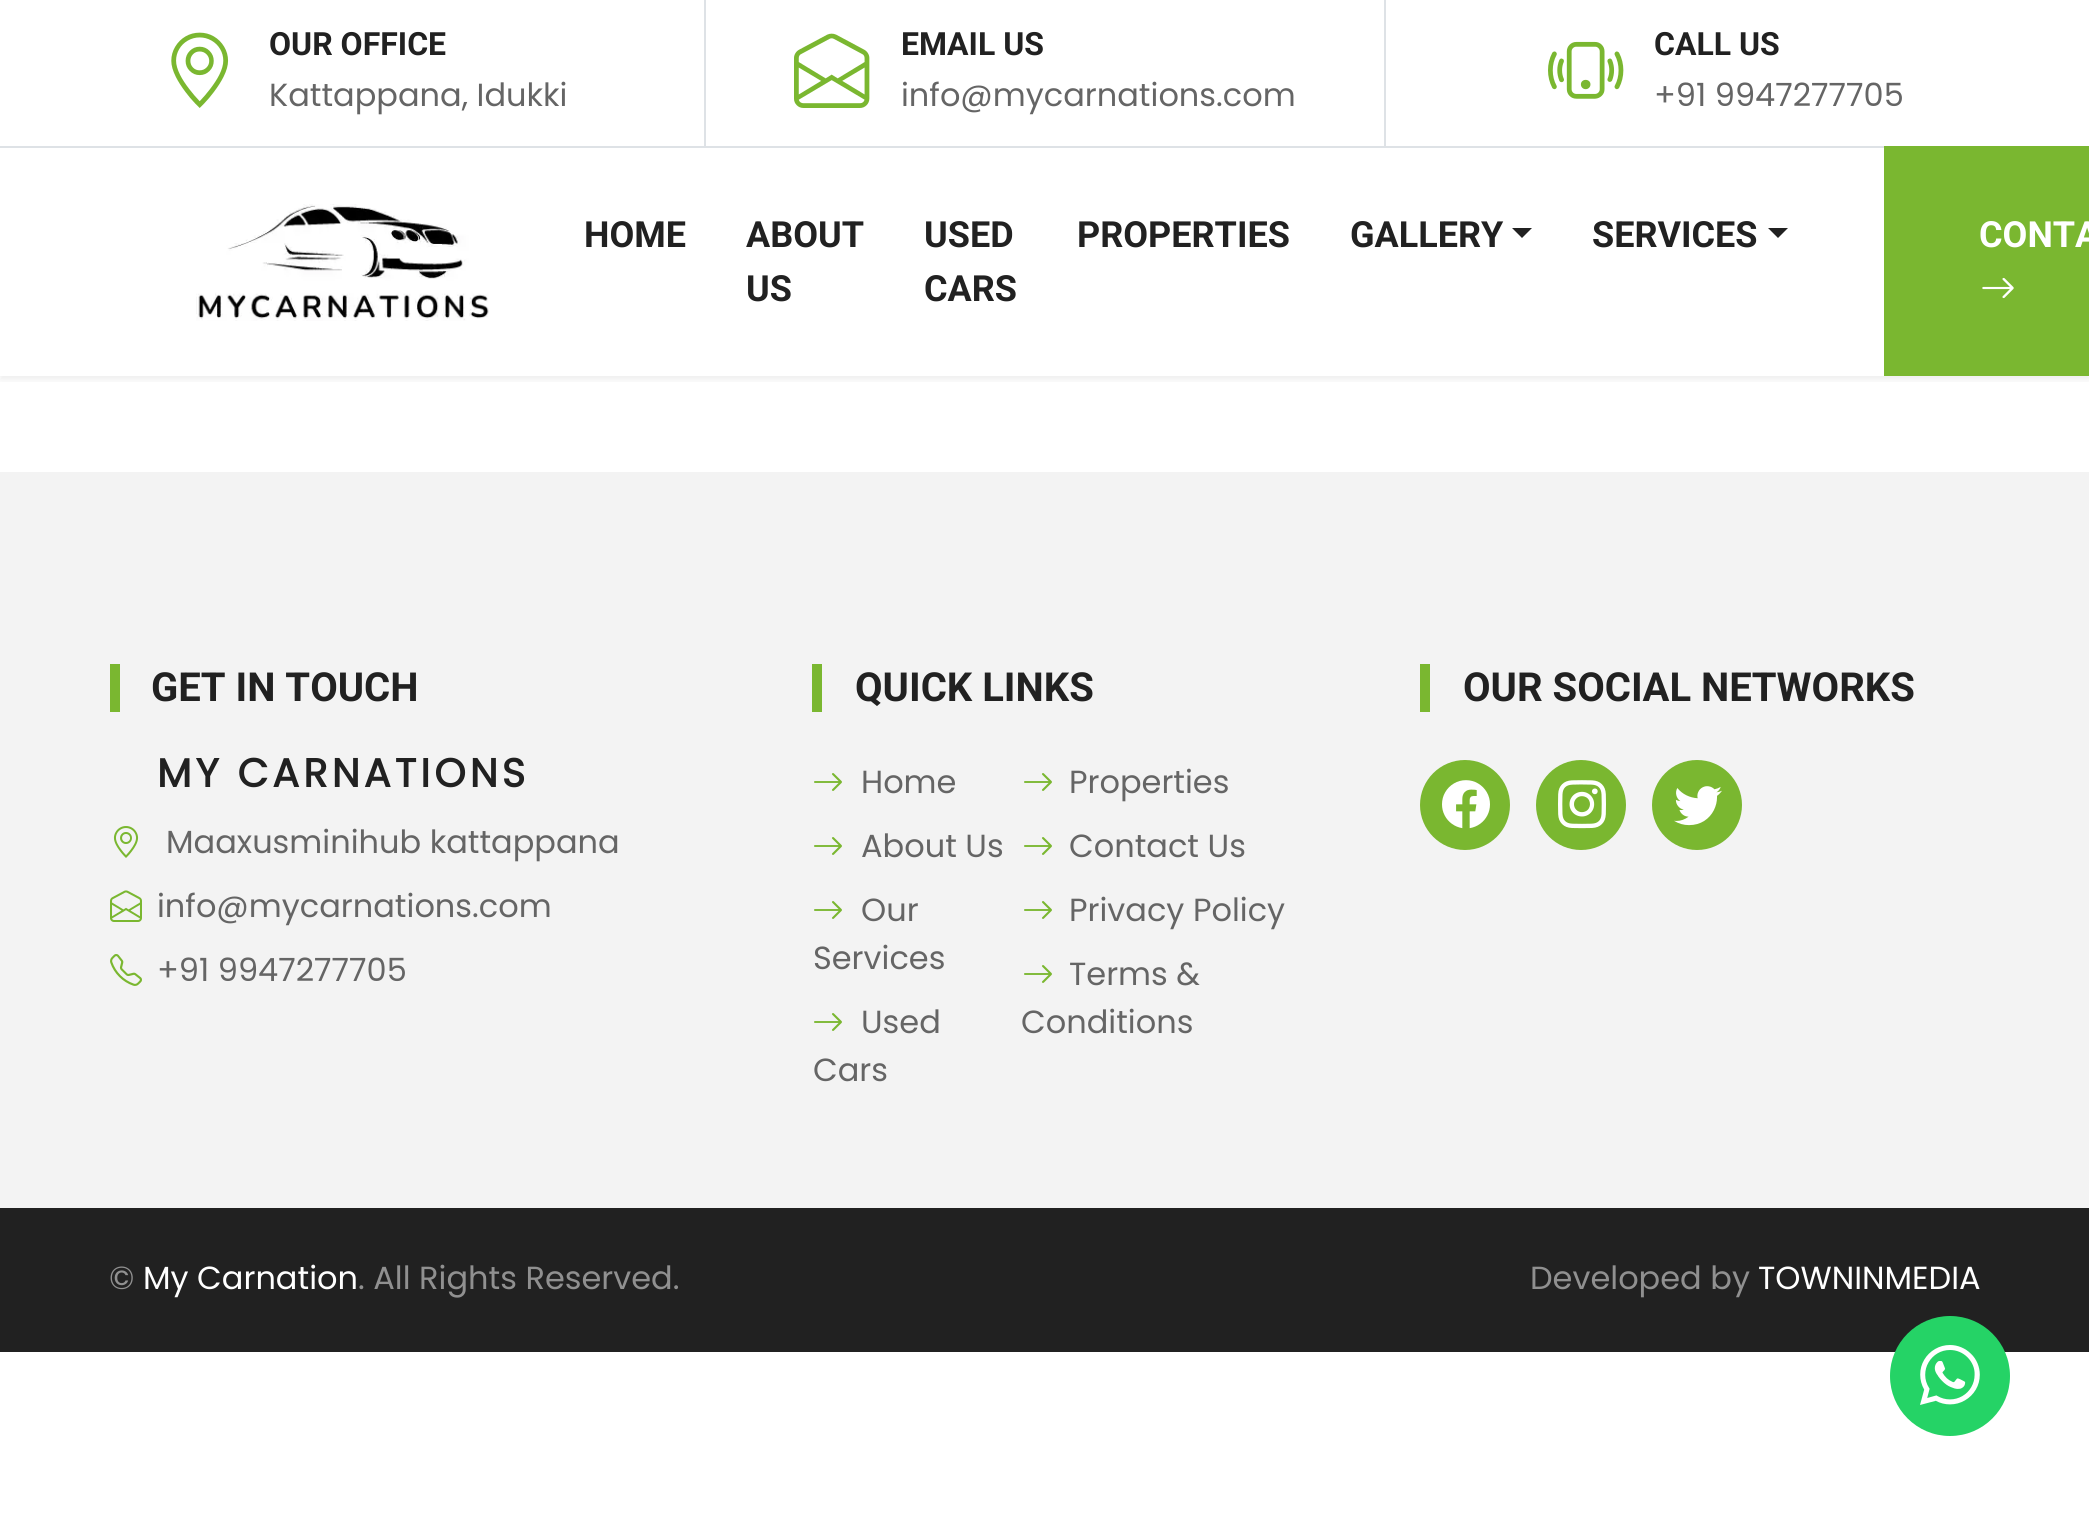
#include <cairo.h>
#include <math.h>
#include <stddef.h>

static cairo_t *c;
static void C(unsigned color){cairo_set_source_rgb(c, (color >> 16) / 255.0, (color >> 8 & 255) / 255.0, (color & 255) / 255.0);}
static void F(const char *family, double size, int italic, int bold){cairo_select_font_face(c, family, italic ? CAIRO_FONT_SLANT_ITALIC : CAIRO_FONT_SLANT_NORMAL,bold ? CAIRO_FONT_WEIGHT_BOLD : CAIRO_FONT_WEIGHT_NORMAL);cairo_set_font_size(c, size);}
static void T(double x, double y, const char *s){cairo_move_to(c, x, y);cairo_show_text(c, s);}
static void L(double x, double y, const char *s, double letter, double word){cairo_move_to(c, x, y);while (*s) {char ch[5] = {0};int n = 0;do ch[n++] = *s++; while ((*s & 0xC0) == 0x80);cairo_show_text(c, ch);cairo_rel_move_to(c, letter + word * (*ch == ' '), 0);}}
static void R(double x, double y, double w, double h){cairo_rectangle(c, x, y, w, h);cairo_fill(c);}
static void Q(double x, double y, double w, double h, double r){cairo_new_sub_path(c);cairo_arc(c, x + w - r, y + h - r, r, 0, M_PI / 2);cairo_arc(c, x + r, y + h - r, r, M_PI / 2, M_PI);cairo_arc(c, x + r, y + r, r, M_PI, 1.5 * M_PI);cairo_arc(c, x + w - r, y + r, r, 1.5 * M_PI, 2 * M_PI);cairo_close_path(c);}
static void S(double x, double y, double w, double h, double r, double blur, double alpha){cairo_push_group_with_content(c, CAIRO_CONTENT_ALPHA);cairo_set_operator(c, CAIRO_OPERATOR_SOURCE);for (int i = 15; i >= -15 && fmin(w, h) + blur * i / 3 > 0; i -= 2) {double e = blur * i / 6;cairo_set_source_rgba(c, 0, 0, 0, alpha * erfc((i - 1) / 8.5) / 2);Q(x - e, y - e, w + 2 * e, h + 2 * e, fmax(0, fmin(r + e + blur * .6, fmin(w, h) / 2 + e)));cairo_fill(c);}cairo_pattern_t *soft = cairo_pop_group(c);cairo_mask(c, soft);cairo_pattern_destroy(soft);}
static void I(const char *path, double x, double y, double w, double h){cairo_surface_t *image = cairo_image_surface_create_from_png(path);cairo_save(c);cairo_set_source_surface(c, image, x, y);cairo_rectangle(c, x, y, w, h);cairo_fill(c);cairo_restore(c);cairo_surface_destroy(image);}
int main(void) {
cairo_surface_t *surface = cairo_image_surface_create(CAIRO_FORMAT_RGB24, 2089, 1516);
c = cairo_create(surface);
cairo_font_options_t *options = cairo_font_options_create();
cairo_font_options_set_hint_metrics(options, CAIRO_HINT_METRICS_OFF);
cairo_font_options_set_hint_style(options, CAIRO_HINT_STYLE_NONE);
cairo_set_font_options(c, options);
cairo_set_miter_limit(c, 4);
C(0xffffff);
cairo_paint(c);
C(0xdee2e6);
R(0,146,1884,2);
I("1.png",171,32,58,76);
F("Roboto",32,0,1);
C(0x212121);
T(269,55,"OUR OFFICE");
F("Poppins",32,0,0);
C(0x656565);
T(269,106,"Kattappana, Idukki");
C(0xdee2e6);
R(1384,0,2,146);
R(704,0,2,146);
I("2.png",794,33,76,75);
F("Roboto",32,0,1);
C(0x212121);
T(901,55,"EMAIL US");
F("Poppins",32,0,0);
C(0x656565);
T(901,106,"info@mycarnations.com");
I("3.png",1548,41,76,58);
F("Roboto",32,0,1);
C(0x212121);
T(1654,55,"CALL US");
F("Poppins",32,0,0);
C(0x656565);
T(1654,106,"+91 9947277705");
cairo_save(c);
cairo_rectangle(c,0,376,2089,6);
cairo_clip(c);
C(0x000000);
S(0,152,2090,228,0,4,.07);
cairo_restore(c);
I("4.png",196,204,293,117);
F("Roboto",36,0,1);
C(0x212121);
T(584,247,"HOME");
T(746,247,"ABOUT");
T(746,301,"US");
T(924,247,"USED");
T(924,301,"CARS");
T(1077,247,"PROPERTIES");
T(1350,247,"GALLERY");
cairo_new_path(c);
cairo_move_to(c,1512,228);
cairo_line_to(c,1532,228);
cairo_line_to(c,1522,238);
cairo_close_path(c);
cairo_fill(c);
T(1592,247,"SERVICES");
cairo_new_path(c);
cairo_move_to(c,1768,228);
cairo_line_to(c,1788,228);
cairo_line_to(c,1778,238);
cairo_close_path(c);
cairo_fill(c);
C(0x7ab730);
R(1884,146,205,230);
C(0xffffff);
T(1979,247,"CONTA");
I("5.png",1982,277,32,22);
C(0xf3f3f3);
R(0,472,2089,736);
C(0x7ab730);
R(110,664,10,48);
F("Roboto",40,0,1);
C(0x212121);
T(151,701,"GET IN TOUCH");
F("Poppins",40,0,1);
L(157,787,"MY CARNATIONS",4,0);
I("6.png",113,826,26,32);
F("Poppins",32,0,0);
C(0x656565);
T(166,853,"Maaxusminihub kattappana");
I("7.png",110,890,32,32);
T(157,917,"info@mycarnations.com");
I("8.png",110,954,32,32);
T(157,981,"+91 9947277705");
C(0x7ab730);
R(812,664,10,48);
F("Roboto",40,0,1);
C(0x212121);
T(855,701,"QUICK LINKS");
I("9.png",814,773,28,18);
F("Poppins",32,0,0);
C(0x656565);
T(861,793,"Home");
I("9.png",814,837,28,18);
T(861,857,"About Us");
I("9.png",814,901,28,18);
T(861,921,"Our");
T(813,969,"Services");
I("9.png",814,1013,28,18);
T(861,1033,"Used");
T(813,1081,"Cars");
I("9.png",1024,773,28,18);
T(1069,793,"Properties");
I("9.png",1024,837,28,18);
T(1069,857,"Contact Us");
I("9.png",1024,901,28,18);
T(1069,921,"Privacy Policy");
I("9.png",1024,965,28,18);
T(1069,985,"Terms &");
T(1021,1033,"Conditions");
C(0x7ab730);
R(1420,664,10,48);
F("Roboto",40,0,1);
C(0x212121);
T(1463,701,"OUR SOCIAL NETWORKS");
C(0x7ab730);
cairo_new_path(c);
cairo_arc(c,1465,805,45,0,2 * M_PI);
cairo_fill(c);
I("10.png",1442,780,48,49);
cairo_arc(c,1581,805,45,0,2 * M_PI);
cairo_fill(c);
I("11.png",1558,780,48,49);
cairo_arc(c,1697,805,45,0,2 * M_PI);
cairo_fill(c);
I("12.png",1674,786,48,40);
C(0x212121);
R(0,1208,2089,144);
F("Poppins",32,0,0);
C(0x909090);
T(109,1289,"©");
C(0xffffff);
T(143,1289,"My Carnation");
C(0x909090);
T(358,1289,". All Rights Reserved.");
T(1530,1289,"Developed by");
C(0xffffff);
T(1758,1289,"TOWNINMEDIA");
C(0x25d366);
cairo_new_path(c);
cairo_arc(c,1950,1376,60,0,2 * M_PI);
cairo_fill(c);
I("13.png",1920,1345,60,60);
cairo_surface_write_to_png(surface, "o.png");
cairo_font_options_destroy(options);
cairo_destroy(c);
cairo_surface_destroy(surface);
return 0;
}
